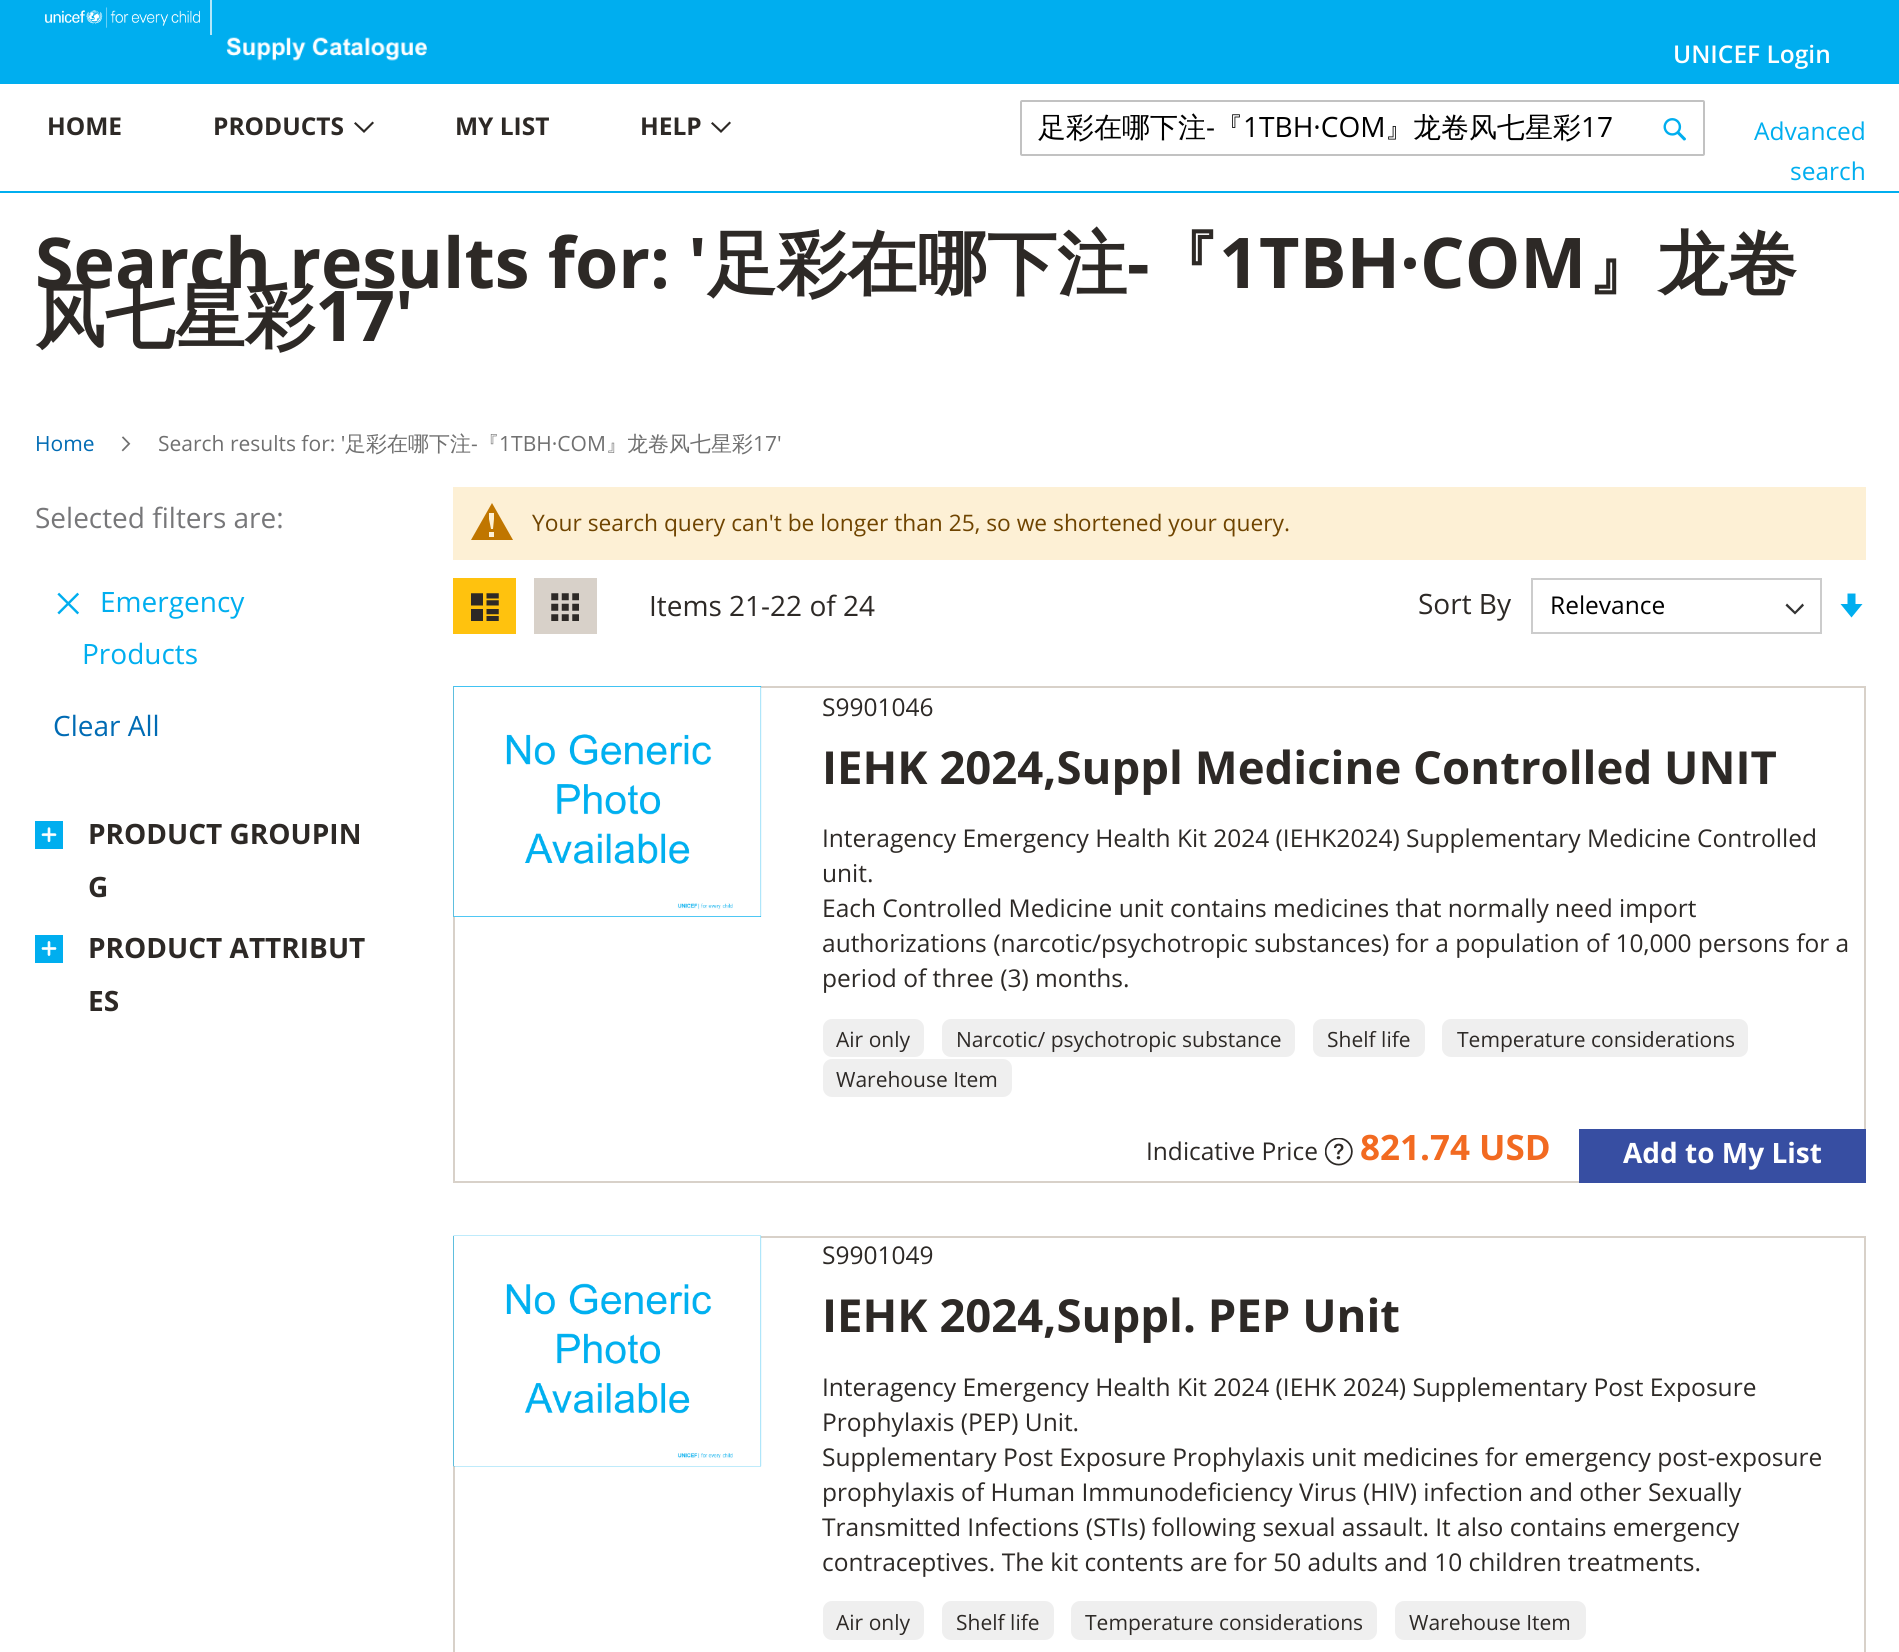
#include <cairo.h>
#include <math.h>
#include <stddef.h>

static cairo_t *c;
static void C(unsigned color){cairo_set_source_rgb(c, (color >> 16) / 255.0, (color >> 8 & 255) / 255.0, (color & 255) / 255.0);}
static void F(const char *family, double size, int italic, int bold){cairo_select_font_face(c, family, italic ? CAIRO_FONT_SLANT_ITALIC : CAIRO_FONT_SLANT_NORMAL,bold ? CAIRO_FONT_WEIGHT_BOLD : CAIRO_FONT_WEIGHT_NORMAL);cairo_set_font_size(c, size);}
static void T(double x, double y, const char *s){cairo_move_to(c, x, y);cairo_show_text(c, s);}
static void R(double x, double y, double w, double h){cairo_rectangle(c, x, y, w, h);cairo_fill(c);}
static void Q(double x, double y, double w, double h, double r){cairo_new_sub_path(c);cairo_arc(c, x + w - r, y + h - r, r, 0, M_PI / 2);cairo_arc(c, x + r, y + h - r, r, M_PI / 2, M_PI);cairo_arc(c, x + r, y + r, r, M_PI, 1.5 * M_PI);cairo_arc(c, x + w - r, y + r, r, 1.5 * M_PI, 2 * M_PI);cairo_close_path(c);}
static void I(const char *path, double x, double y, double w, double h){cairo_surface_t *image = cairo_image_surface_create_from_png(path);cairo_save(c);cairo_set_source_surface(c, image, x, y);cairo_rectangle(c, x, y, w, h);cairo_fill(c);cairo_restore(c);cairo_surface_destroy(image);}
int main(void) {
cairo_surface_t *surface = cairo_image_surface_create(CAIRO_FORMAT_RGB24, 1899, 1652);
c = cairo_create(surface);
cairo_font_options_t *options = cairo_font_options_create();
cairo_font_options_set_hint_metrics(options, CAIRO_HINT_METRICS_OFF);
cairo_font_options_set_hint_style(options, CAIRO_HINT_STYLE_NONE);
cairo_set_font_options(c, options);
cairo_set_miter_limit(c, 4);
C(0xffffff);
cairo_paint(c);
C(0x00aeef);
R(0,0,1899,84);
C(0xb3e7fa);
R(210,0,2,35);
I("1.png",45,7,155,21);
I("2.png",226,37,201,24);
F("Open Sans SemiBold",24.5,0,0);
C(0xffffff);
T(1673,63,"UNICEF Login");
C(0x00aeef);
R(0,191,1899,2);
F("Open Sans",24.5,0,1);
C(0x2d2926);
T(47,135,"HOME");
T(213,135,"PRODUCTS");
cairo_new_path(c);
cairo_move_to(c,364,130);
cairo_line_to(c,355.5,122);
cairo_line_to(c,354,123.5);
cairo_line_to(c,364,133);
cairo_line_to(c,374,123);
cairo_line_to(c,372.5,121.5);
cairo_close_path(c);
cairo_fill(c);
T(455,135,"MY LIST");
T(640,135,"HELP");
cairo_new_path(c);
cairo_move_to(c,721,130);
cairo_line_to(c,712.5,122);
cairo_line_to(c,711,123.5);
cairo_line_to(c,721,133);
cairo_line_to(c,731,123);
cairo_line_to(c,729.5,121.5);
cairo_close_path(c);
cairo_fill(c);
Q(1021,101,683,54,1);
C(0xc2c2c2);
cairo_stroke(c);
F("WenQuanYi Zen Hei Medium",28,0,0);
C(0x000000);
T(1038,137,"足彩在哪下注");
F("Open Sans",28,0,0);
T(1206,137,"-");
F("WenQuanYi Zen Hei Medium",28,0,0);
T(1215,137,"『");
F("Open Sans",28,0,0);
T(1243,137,"1TBH·COM");
F("WenQuanYi Zen Hei Medium",28,0,0);
T(1385,137,"』龙卷风七星彩");
F("Open Sans",28,0,0);
T(1581,137,"17");
I("3.png",1663,118,23,23);
F("Open Sans",24.5,0,0);
C(0x00aeef);
T(1754,140,"Advanced");
T(1790,180,"search");
F("Open Sans",70,0,1);
C(0x2d2926);
T(35,288,"Search results for: '");
F("WenQuanYi Zen Hei",70,0,1);
T(707,288,"足彩在哪下注");
F("Open Sans",70,0,1);
T(1127,288,"-");
F("WenQuanYi Zen Hei",70,0,1);
T(1149,288,"『");
F("Open Sans",70,0,1);
T(1219,288,"1TBH·COM");
F("WenQuanYi Zen Hei",70,0,1);
T(1587,288,"』龙卷");
T(35,341,"风七星彩");
F("Open Sans",70,0,1);
T(315,341,"17'");
F("Open Sans",21,0,0);
C(0x006bb4);
T(35,451,"Home");
I("4.png",121,436,10,16);
C(0x707070);
T(158,451,"Search results for: '");
F("WenQuanYi Zen Hei Medium",21,0,0);
T(345,451,"足彩在哪下注");
F("Open Sans",21,0,0);
T(471,451,"-");
F("WenQuanYi Zen Hei Medium",21,0,0);
T(478,451,"『");
F("Open Sans",21,0,0);
T(499,451,"1TBH·COM");
F("WenQuanYi Zen Hei Medium",21,0,0);
T(606,451,"』龙卷风七星彩");
F("Open Sans",21,0,0);
T(753,451,"17'");
F("Open Sans",28,0,0);
C(0x777779);
T(35,528,"Selected filters are:");
I("5.png",57,592,22,23);
C(0x00aeef);
T(100,612,"Emergency");
T(82,664,"Products");
C(0x006bb4);
T(53,736,"Clear All");
I("6.png",35,821,28,28);
F("Open Sans",28,0,1);
C(0x2d2926);
T(88,844,"PRODUCT GROUPIN");
T(88,897,"G");
I("7.png",35,935,28,28);
T(88,958,"PRODUCT ATTRIBUT");
T(88,1011,"ES");
C(0xfdf0d5);
R(453,487,1413,73);
C(0xc07600);
cairo_new_path(c);
cairo_move_to(c,492,503);
cairo_line_to(c,471,540);
cairo_line_to(c,513,540);
cairo_close_path(c);
cairo_move_to(c,494,513);
cairo_line_to(c,494,519);
cairo_line_to(c,493,529);
cairo_line_to(c,491,529);
cairo_line_to(c,489,519);
cairo_line_to(c,489,513);
cairo_close_path(c);
cairo_move_to(c,489,537);
cairo_line_to(c,489,532);
cairo_line_to(c,494,532);
cairo_line_to(c,494,537);
cairo_close_path(c);
cairo_fill(c);
F("Open Sans",22.75,0,0);
C(0x6f4400);
T(532,531,"Your search query can't be longer than 25, so we shortened your query.");
C(0xffc20e);
R(453,578,63,56);
I("8.png",471,593,28,28);
C(0xd8d1c9);
R(534,578,63,56);
I("9.png",551,593,28,28);
F("Open Sans",28,0,0);
C(0x2d2926);
T(649,616,"Items 21-22 of 24");
T(1418,614,"Sort By");
C(0x333333);
cairo_set_fill_rule(c,CAIRO_FILL_RULE_EVEN_ODD);
cairo_new_path(c);
cairo_move_to(c,1795,614.5);
cairo_line_to(c,1804,605.5);
cairo_line_to(c,1802.5,603.5);
cairo_line_to(c,1795,611.5);
cairo_line_to(c,1787,603.5);
cairo_line_to(c,1785.5,605.5);
cairo_close_path(c);
cairo_fill(c);
cairo_rectangle(c,1532,579,289,54);
C(0xcccccc);
cairo_stroke(c);
F("Open Sans",24.5,0,0);
C(0x000000);
T(1550,614,"Relevance");
C(0x00aeef);
cairo_set_fill_rule(c,CAIRO_FILL_RULE_WINDING);
cairo_new_path(c);
cairo_move_to(c,1855.5,604);
cairo_line_to(c,1855.5,593.5);
cairo_line_to(c,1847.5,593.5);
cairo_line_to(c,1847.5,604);
cairo_line_to(c,1840.5,604);
cairo_line_to(c,1851.5,617.5);
cairo_line_to(c,1862.5,604);
cairo_close_path(c);
cairo_fill(c);
cairo_rectangle(c,454,687,1411,495);
C(0xd8d1c9);
cairo_stroke(c);
I("10.png",453,686,309,231);
C(0x2d2926);
T(822,716,"S9901046");
F("Open Sans",45.5,0,1);
T(822,784,"IEHK 2024,Suppl Medicine Controlled UNIT");
F("Open Sans",24.5,0,0);
T(822,847,"Interagency Emergency Health Kit 2024 (IEHK2024) Supplementary Medicine Controlled");
T(822,882,"unit.");
T(822,917,"Each Controlled Medicine unit contains medicines that normally need import");
T(822,952,"authorizations (narcotic/psychotropic substances) for a population of 10,000 persons for a");
T(822,987,"period of three (3) months.");
C(0xefefef);
Q(823,1019,101,38,9);
cairo_fill(c);
F("Open Sans",21,0,0);
C(0x2d2926);
T(836,1047,"Air only");
C(0xefefef);
Q(942,1019,353,38,9);
cairo_fill(c);
C(0x2d2926);
T(956,1047,"Narcotic/ psychotropic substance");
C(0xefefef);
Q(1313,1019,112,38,9);
cairo_fill(c);
C(0x2d2926);
T(1327,1047,"Shelf life");
C(0xefefef);
Q(1442,1019,306,38,9);
cairo_fill(c);
C(0x2d2926);
T(1457,1047,"Temperature considerations");
C(0xefefef);
Q(823,1059,189,38,9);
cairo_fill(c);
C(0x2d2926);
T(836,1087,"Warehouse Item");
F("Open Sans",24.5,0,0);
T(1146,1160,"Indicative Price");
I("11.png",1325,1138,28,28);
F("Open Sans",35,0,1);
C(0xf26a21);
T(1360,1160,"821.74 USD");
C(0x374ea2);
R(1579,1129,287,54);
F("Open Sans",28,0,1);
C(0xffffff);
T(1623,1163,"Add to My List");
cairo_rectangle(c,454,1237,1411,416);
C(0xd8d1c9);
cairo_stroke(c);
I("12.png",453,1235,309,232);
F("Open Sans",24.5,0,0);
C(0x2d2926);
T(822,1264,"S9901049");
F("Open Sans",45.5,0,1);
T(822,1332,"IEHK 2024,Suppl. PEP Unit");
F("Open Sans",24.5,0,0);
T(822,1396,"Interagency Emergency Health Kit 2024 (IEHK 2024) Supplementary Post Exposure");
T(822,1431,"Prophylaxis (PEP) Unit.");
T(822,1466,"Supplementary Post Exposure Prophylaxis unit medicines for emergency post-exposure");
T(822,1501,"prophylaxis of Human Immunodeficiency Virus (HIV) infection and other Sexually");
T(822,1536,"Transmitted Infections (STIs) following sexual assault. It also contains emergency");
T(822,1571,"contraceptives. The kit contents are for 50 adults and 10 children treatments.");
C(0xefefef);
Q(823,1601,101,39,9);
cairo_fill(c);
F("Open Sans",21,0,0);
C(0x2d2926);
T(836,1630,"Air only");
C(0xefefef);
Q(942,1601,112,39,9);
cairo_fill(c);
C(0x2d2926);
T(956,1630,"Shelf life");
C(0xefefef);
Q(1071,1601,306,39,9);
cairo_fill(c);
C(0x2d2926);
T(1085,1630,"Temperature considerations");
C(0xefefef);
Q(1395,1601,191,39,9);
cairo_fill(c);
C(0x2d2926);
T(1409,1630,"Warehouse Item");
cairo_surface_write_to_png(surface, "o.png");
cairo_font_options_destroy(options);
cairo_destroy(c);
cairo_surface_destroy(surface);
return 0;
}
